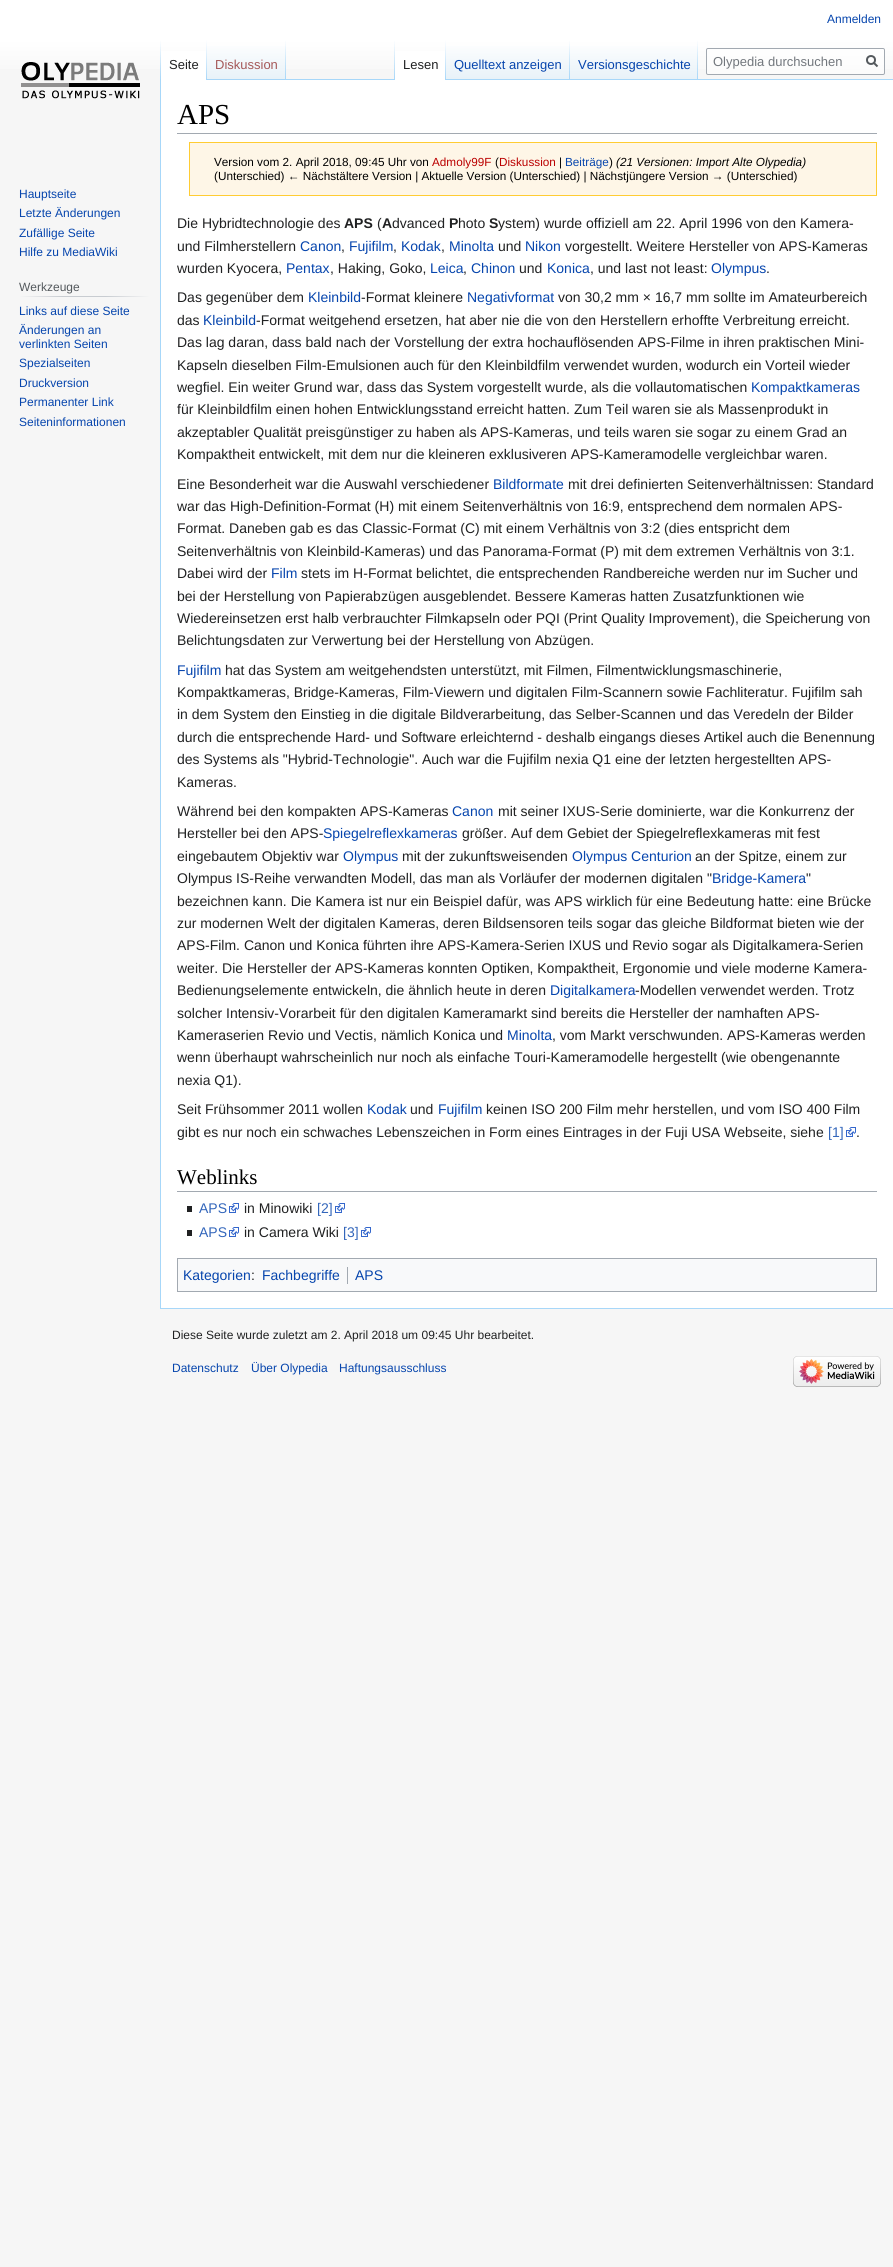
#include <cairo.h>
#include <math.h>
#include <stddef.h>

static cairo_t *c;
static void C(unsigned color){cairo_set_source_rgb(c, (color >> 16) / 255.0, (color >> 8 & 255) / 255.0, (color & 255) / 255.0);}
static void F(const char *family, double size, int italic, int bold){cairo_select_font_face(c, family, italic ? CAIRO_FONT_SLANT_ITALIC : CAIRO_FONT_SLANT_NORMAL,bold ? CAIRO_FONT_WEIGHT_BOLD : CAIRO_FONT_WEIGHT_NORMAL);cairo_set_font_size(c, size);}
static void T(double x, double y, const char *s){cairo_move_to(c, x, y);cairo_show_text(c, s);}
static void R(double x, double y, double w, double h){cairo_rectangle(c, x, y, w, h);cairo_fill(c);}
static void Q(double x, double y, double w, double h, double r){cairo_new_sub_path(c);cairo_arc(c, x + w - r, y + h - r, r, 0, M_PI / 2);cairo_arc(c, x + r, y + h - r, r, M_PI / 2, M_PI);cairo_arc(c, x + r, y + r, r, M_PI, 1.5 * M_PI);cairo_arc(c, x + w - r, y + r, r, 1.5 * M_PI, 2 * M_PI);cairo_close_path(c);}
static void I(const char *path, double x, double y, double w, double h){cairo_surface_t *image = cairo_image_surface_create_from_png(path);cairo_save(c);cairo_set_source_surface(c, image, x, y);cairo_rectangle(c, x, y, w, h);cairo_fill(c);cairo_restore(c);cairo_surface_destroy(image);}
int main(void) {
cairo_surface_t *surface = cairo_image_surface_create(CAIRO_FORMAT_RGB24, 893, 2267);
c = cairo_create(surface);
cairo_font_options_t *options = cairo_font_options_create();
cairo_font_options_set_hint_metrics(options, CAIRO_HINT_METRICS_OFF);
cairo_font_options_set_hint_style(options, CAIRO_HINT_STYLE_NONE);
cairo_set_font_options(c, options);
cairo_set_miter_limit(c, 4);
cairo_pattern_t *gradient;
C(0xf6f6f6);
cairo_paint(c);
gradient = cairo_pattern_create_linear(447,0,447,80);
cairo_pattern_add_color_stop_rgba(gradient,.5,1,1,1,1);
cairo_pattern_add_color_stop_rgba(gradient,1,0.965,0.965,0.965,1);
cairo_set_source(c,gradient);
cairo_pattern_destroy(gradient);
R(0,0,893,69);
F("Liberation Sans",12,0,0);
C(0x0645ad);
T(827,23,"Anmelden");
C(0xa7d7f9);
R(160,1308,733,1);
R(160,79,1,1230);
gradient = cairo_pattern_create_linear(161,40,161,80);
cairo_pattern_add_color_stop_rgba(gradient,0,0.655,0.843,0.976,0);
cairo_pattern_add_color_stop_rgba(gradient,1,0.655,0.843,0.976,1);
cairo_set_source(c,gradient);
cairo_pattern_destroy(gradient);
R(160,40,1,40);
C(0xffffff);
R(161,51,45,29);
gradient = cairo_pattern_create_linear(207,40,207,80);
cairo_pattern_add_color_stop_rgba(gradient,0,1,1,1,1);
cairo_pattern_add_color_stop_rgba(gradient,1,0.655,0.843,0.976,1);
cairo_set_source(c,gradient);
cairo_pattern_destroy(gradient);
R(206,40,1,40);
F("Liberation Sans",13,0,0);
C(0x202122);
T(169,69,"Seite");
gradient = cairo_pattern_create_linear(247,80,247,40);
cairo_pattern_add_color_stop_rgba(gradient,0,0.467,0.757,0.965,1);
cairo_pattern_add_color_stop_rgba(gradient,.03,0.91,0.949,0.973,1);
cairo_pattern_add_color_stop_rgba(gradient,1,1,1,1,1);
cairo_set_source(c,gradient);
cairo_pattern_destroy(gradient);
R(207,46,79,34);
gradient = cairo_pattern_create_linear(286,40,286,80);
cairo_pattern_add_color_stop_rgba(gradient,0,0.655,0.843,0.976,0);
cairo_pattern_add_color_stop_rgba(gradient,1,0.655,0.843,0.976,1);
cairo_set_source(c,gradient);
cairo_pattern_destroy(gradient);
R(285,40,1,40);
C(0xa55858);
T(215,69,"Diskussion");
C(0xa7d7f9);
R(286,79,607,1);
gradient = cairo_pattern_create_linear(395,40,395,80);
cairo_pattern_add_color_stop_rgba(gradient,0,0.655,0.843,0.976,0);
cairo_pattern_add_color_stop_rgba(gradient,1,0.655,0.843,0.976,1);
cairo_set_source(c,gradient);
cairo_pattern_destroy(gradient);
R(394,40,1,40);
C(0xffffff);
R(395,51,50,29);
gradient = cairo_pattern_create_linear(446,40,446,80);
cairo_pattern_add_color_stop_rgba(gradient,0,1,1,1,1);
cairo_pattern_add_color_stop_rgba(gradient,1,0.655,0.843,0.976,1);
cairo_set_source(c,gradient);
cairo_pattern_destroy(gradient);
R(445,40,1,40);
C(0x202122);
T(403,69,"Lesen");
gradient = cairo_pattern_create_linear(508,80,508,40);
cairo_pattern_add_color_stop_rgba(gradient,0,0.467,0.757,0.965,1);
cairo_pattern_add_color_stop_rgba(gradient,.03,0.91,0.949,0.973,1);
cairo_pattern_add_color_stop_rgba(gradient,1,1,1,1,1);
cairo_set_source(c,gradient);
cairo_pattern_destroy(gradient);
R(446,46,124,33);
gradient = cairo_pattern_create_linear(570,40,570,80);
cairo_pattern_add_color_stop_rgba(gradient,0,0.655,0.843,0.976,0);
cairo_pattern_add_color_stop_rgba(gradient,1,0.655,0.843,0.976,1);
cairo_set_source(c,gradient);
cairo_pattern_destroy(gradient);
R(569,40,1,40);
C(0x0645ad);
T(454,69,"Quelltext anzeigen");
gradient = cairo_pattern_create_linear(634,80,634,40);
cairo_pattern_add_color_stop_rgba(gradient,0,0.467,0.757,0.965,1);
cairo_pattern_add_color_stop_rgba(gradient,.03,0.91,0.949,0.973,1);
cairo_pattern_add_color_stop_rgba(gradient,1,1,1,1,1);
cairo_set_source(c,gradient);
cairo_pattern_destroy(gradient);
R(570,46,128,33);
gradient = cairo_pattern_create_linear(698,40,698,80);
cairo_pattern_add_color_stop_rgba(gradient,0,0.655,0.843,0.976,0);
cairo_pattern_add_color_stop_rgba(gradient,1,0.655,0.843,0.976,1);
cairo_set_source(c,gradient);
cairo_pattern_destroy(gradient);
R(697,40,1,40);
C(0x0645ad);
T(578,69,"Versionsgeschichte");
cairo_set_source_rgba(c,1,1,1,0.5);
Q(706.5,48.5,178,26,1.5);
cairo_fill_preserve(c);
C(0xa2a9b1);
cairo_set_line_width(c,1);
cairo_stroke(c);
C(0x72777d);
T(713,66,"Olypedia durchsuchen");
cairo_new_path(c);
cairo_move_to(c,877.5,66.5);
cairo_line_to(c,873.5,62.5);
C(0x54595d);
cairo_set_line_width(c,2);
cairo_stroke(c);
cairo_arc(c,871,60,4,0,2 * M_PI);
cairo_stroke(c);
I("1.png",21,62,119,37);
F("Liberation Sans",12,0,0);
C(0x0645ad);
T(19,198,"Hauptseite");
T(19,217,"Letzte Änderungen");
T(19,237,"Zufällige Seite");
T(19,256,"Hilfe zu MediaWiki");
gradient = cairo_pattern_create_linear(19,297,150,297);
cairo_pattern_add_color_stop_rgba(gradient,0,0.965,0.965,0.965,1);
cairo_pattern_add_color_stop_rgba(gradient,.33,0.784,0.8,0.82,1);
cairo_pattern_add_color_stop_rgba(gradient,.66,0.784,0.8,0.82,1);
cairo_pattern_add_color_stop_rgba(gradient,1,0.965,0.965,0.965,1);
cairo_set_source(c,gradient);
cairo_pattern_destroy(gradient);
R(19,296,131,1);
C(0x54595d);
T(19,291,"Werkzeuge");
C(0x0645ad);
T(19,315,"Links auf diese Seite");
T(19,334,"Änderungen an");
T(19,348,"verlinkten Seiten");
T(19,367,"Spezialseiten");
T(19,387,"Druckversion");
T(19,406,"Permanenter Link");
T(19,426,"Seiteninformationen");
C(0xffffff);
R(161,80,732,1228);
C(0xa2a9b1);
R(177,133,700,1);
F("Liberation Serif",29,0,0);
C(0x000000);
T(177,124,"APS");
C(0xfef6e7);
cairo_rectangle(c,189.5,142.5,687,53);
cairo_fill_preserve(c);
C(0xffcc33);
cairo_set_line_width(c,1);
cairo_stroke(c);
F("Liberation Sans",11.75,0,0);
C(0x000000);
T(214,166,"Version vom 2. April 2018, 09:45 Uhr von");
C(0xba0000);
T(432,166,"Admoly99F");
C(0x000000);
T(495,166,"(");
C(0xba0000);
T(499,166,"Diskussion");
C(0x000000);
T(559,166,"|");
C(0x0645ad);
T(565,166,"Beiträge");
C(0x000000);
T(609,166,")");
F("Liberation Sans",11.75,1,0);
T(616,166,"(21 Versionen: Import Alte Olypedia)");
F("Liberation Sans",11.75,0,0);
T(214,180,"(Unterschied) ← Nächstältere Version | Aktuelle Version (Unterschied) | Nächstjüngere Version → (Unterschied)");
F("Liberation Sans",14,0,0);
C(0x202122);
T(177,228,"Die Hybridtechnologie des");
F("Liberation Sans",14,0,1);
T(344,228,"APS");
F("Liberation Sans",14,0,0);
T(377,228,"(");
F("Liberation Sans",14,0,1);
T(382,228,"A");
F("Liberation Sans",14,0,0);
T(392,228,"dvanced");
F("Liberation Sans",14,0,1);
T(449,228,"P");
F("Liberation Sans",14,0,0);
T(458,228,"hoto");
F("Liberation Sans",14,0,1);
T(489,228,"S");
F("Liberation Sans",14,0,0);
T(498,228,"ystem) wurde offiziell am 22. April 1996 von den Kamera-");
T(177,251,"und Filmherstellern");
C(0x0645ad);
T(300,251,"Canon");
C(0x202122);
T(341,251,",");
C(0x0645ad);
T(349,251,"Fujifilm");
C(0x202122);
T(393,251,",");
C(0x0645ad);
T(401,251,"Kodak");
C(0x202122);
T(441,251,",");
C(0x0645ad);
T(449,251,"Minolta");
C(0x202122);
T(498,251,"und");
C(0x0645ad);
T(525,251,"Nikon");
C(0x202122);
T(565,251,"vorgestellt. Weitere Hersteller von APS-Kameras");
T(177,273,"wurden Kyocera,");
C(0x0645ad);
T(286,273,"Pentax");
C(0x202122);
T(330,273,", Haking, Goko,");
C(0x0645ad);
T(430,273,"Leica");
C(0x202122);
T(463,273,",");
C(0x0645ad);
T(471,273,"Chinon");
C(0x202122);
T(519,273,"und");
C(0x0645ad);
T(547,273,"Konica");
C(0x202122);
T(590,273,", und last not least:");
C(0x0645ad);
T(711,273,"Olympus");
C(0x202122);
T(766,273,".");
T(177,302,"Das gegenüber dem");
C(0x0645ad);
T(308,302,"Kleinbild");
C(0x202122);
T(361,302,"-Format kleinere");
C(0x0645ad);
T(467,302,"Negativformat");
C(0x202122);
T(558,302,"von 30,2 mm × 16,7 mm sollte im Amateurbereich");
T(177,325,"das");
C(0x0645ad);
T(203,325,"Kleinbild");
C(0x202122);
T(256,325,"-Format weitgehend ersetzen, hat aber nie die von den Herstellern erhoffte Verbreitung erreicht.");
T(177,347,"Das lag daran, dass bald nach der Vorstellung der extra hochauflösenden APS-Filme in ihren praktischen Mini-");
T(177,370,"Kapseln dieselben Film-Emulsionen auch für den Kleinbildfilm verwendet wurden, wodurch ein Vorteil wieder");
T(177,392,"wegfiel. Ein weiter Grund war, dass das System vorgestellt wurde, als die vollautomatischen");
C(0x0645ad);
T(751,392,"Kompaktkameras");
C(0x202122);
T(177,414,"für Kleinbildfilm einen hohen Entwicklungsstand erreicht hatten. Zum Teil waren sie als Massenprodukt in");
T(177,437,"akzeptabler Qualität preisgünstiger zu haben als APS-Kameras, und teils waren sie sogar zu einem Grad an");
T(177,459,"Kompaktheit entwickelt, mit dem nur die kleineren exklusiveren APS-Kameramodelle vergleichbar waren.");
T(177,489,"Eine Besonderheit war die Auswahl verschiedener");
C(0x0645ad);
T(493,489,"Bildformate");
C(0x202122);
T(568,489,"mit drei definierten Seitenverhältnissen: Standard");
T(177,511,"war das High-Definition-Format (H) mit einem Seitenverhältnis von 16:9, entsprechend dem normalen APS-");
T(177,533,"Format. Daneben gab es das Classic-Format (C) mit einem Verhältnis von 3:2 (dies entspricht dem");
T(177,556,"Seitenverhältnis von Kleinbild-Kameras) und das Panorama-Format (P) mit dem extremen Verhältnis von 3:1.");
T(177,578,"Dabei wird der");
C(0x0645ad);
T(271,578,"Film");
C(0x202122);
T(301,578,"stets im H-Format belichtet, die entsprechenden Randbereiche werden nur im Sucher und");
T(177,601,"bei der Herstellung von Papierabzügen ausgeblendet. Bessere Kameras hatten Zusatzfunktionen wie");
T(177,623,"Wiedereinsetzen erst halb verbrauchter Filmkapseln oder PQI (Print Quality Improvement), die Speicherung von");
T(177,645,"Belichtungsdaten zur Verwertung bei der Herstellung von Abzügen.");
C(0x0645ad);
T(177,675,"Fujifilm");
C(0x202122);
T(225,675,"hat das System am weitgehendsten unterstützt, mit Filmen, Filmentwicklungsmaschinerie,");
T(177,697,"Kompaktkameras, Bridge-Kameras, Film-Viewern und digitalen Film-Scannern sowie Fachliteratur. Fujifilm sah");
T(177,719,"in dem System den Einstieg in die digitale Bildverarbeitung, das Selber-Scannen und das Veredeln der Bilder");
T(177,742,"durch die entsprechende Hard- und Software erleichternd - deshalb eingangs dieses Artikel auch die Benennung");
T(177,764,"des Systems als \"Hybrid-Technologie\". Auch war die Fujifilm nexia Q1 eine der letzten hergestellten APS-");
T(177,787,"Kameras.");
T(177,816,"Während bei den kompakten APS-Kameras");
C(0x0645ad);
T(452,816,"Canon");
C(0x202122);
T(498,816,"mit seiner IXUS-Serie dominierte, war die Konkurrenz der");
T(177,838,"Hersteller bei den APS-");
C(0x0645ad);
T(323,838,"Spiegelreflexkameras");
C(0x202122);
T(462,838,"größer. Auf dem Gebiet der Spiegelreflexkameras mit fest");
T(177,861,"eingebautem Objektiv war");
C(0x0645ad);
T(343,861,"Olympus");
C(0x202122);
T(402,861,"mit der zukunftsweisenden");
C(0x0645ad);
T(572,861,"Olympus Centurion");
C(0x202122);
T(695,861,"an der Spitze, einem zur");
T(177,883,"Olympus IS-Reihe verwandten Modell, das man als Vorläufer der modernen digitalen \"");
C(0x0645ad);
T(712,883,"Bridge-Kamera");
C(0x202122);
T(806,883,"\"");
T(177,906,"bezeichnen kann. Die Kamera ist nur ein Beispiel dafür, was APS wirklich für eine Bedeutung hatte: eine Brücke");
T(177,928,"zur modernen Welt der digitalen Kameras, deren Bildsensoren teils sogar das gleiche Bildformat bieten wie der");
T(177,950,"APS-Film. Canon und Konica führten ihre APS-Kamera-Serien IXUS und Revio sogar als Digitalkamera-Serien");
T(177,973,"weiter. Die Hersteller der APS-Kameras konnten Optiken, Kompaktheit, Ergonomie und viele moderne Kamera-");
T(177,995,"Bedienungselemente entwickeln, die ähnlich heute in deren");
C(0x0645ad);
T(550,995,"Digitalkamera");
C(0x202122);
T(635,995,"-Modellen verwendet werden. Trotz");
T(177,1018,"solcher Intensiv-Vorarbeit für den digitalen Kameramarkt sind bereits die Hersteller der namhaften APS-");
T(177,1040,"Kameraserien Revio und Vectis, nämlich Konica und");
C(0x0645ad);
T(507,1040,"Minolta");
C(0x202122);
T(552,1040,", vom Markt verschwunden. APS-Kameras werden");
T(177,1062,"wenn überhaupt wahrscheinlich nur noch als einfache Touri-Kameramodelle hergestellt (wie obengenannte");
T(177,1085,"nexia Q1).");
T(177,1114,"Seit Frühsommer 2011 wollen");
C(0x0645ad);
T(367,1114,"Kodak");
C(0x202122);
T(410,1114,"und");
C(0x0645ad);
T(438,1114,"Fujifilm");
C(0x202122);
T(486,1114,"keinen ISO 200 Film mehr herstellen, und vom ISO 400 Film");
T(177,1137,"gibt es nur noch ein schwaches Lebenszeichen in Form eines Eintrages in der Fuji USA Webseite, siehe");
C(0x3366bb);
T(828,1137,"[1]");
I("2.png",846,1127,10,10);
C(0x202122);
T(856,1137,".");
C(0xa2a9b1);
R(177,1191,700,1);
F("Liberation Serif",21,0,0);
C(0x000000);
T(177,1184,"Weblinks");
C(0x202122);
R(187,1206,5,6);
F("Liberation Sans",14,0,0);
C(0x3366bb);
T(199,1213,"APS");
I("2.png",229,1203,10,10);
C(0x202122);
T(244,1213,"in Minowiki");
C(0x3366bb);
T(317,1213,"[2]");
I("2.png",335,1203,10,10);
C(0x202122);
R(187,1230,5,6);
C(0x3366bb);
T(199,1237,"APS");
I("2.png",229,1227,10,10);
C(0x202122);
T(244,1237,"in Camera Wiki");
C(0x3366bb);
T(343,1237,"[3]");
I("2.png",361,1227,10,10);
C(0xf8f9fa);
cairo_rectangle(c,177.5,1258.5,699,33);
cairo_fill_preserve(c);
C(0xa2a9b1);
cairo_stroke(c);
C(0x0645ad);
T(183,1280,"Kategorien");
C(0x202122);
T(251,1280,":");
C(0x0645ad);
T(262,1280,"Fachbegriffe");
C(0xa2a9b1);
R(347,1267,1,17);
C(0x0645ad);
T(355,1280,"APS");
F("Liberation Sans",12,0,0);
C(0x202122);
T(172,1339,"Diese Seite wurde zuletzt am 2. April 2018 um 09:45 Uhr bearbeitet.");
C(0x0645ad);
T(172,1372,"Datenschutz");
T(251,1372,"Über Olypedia");
T(339,1372,"Haftungsausschluss");
I("3.png",793,1356,88,31);
cairo_surface_write_to_png(surface, "o.png");
cairo_font_options_destroy(options);
cairo_destroy(c);
cairo_surface_destroy(surface);
return 0;
}
